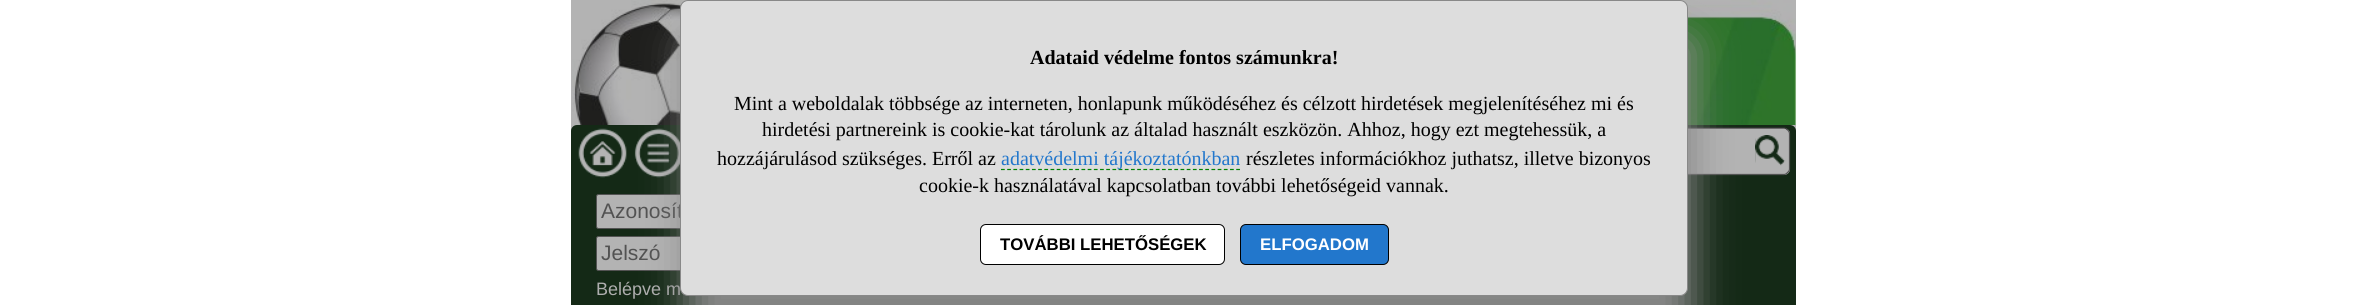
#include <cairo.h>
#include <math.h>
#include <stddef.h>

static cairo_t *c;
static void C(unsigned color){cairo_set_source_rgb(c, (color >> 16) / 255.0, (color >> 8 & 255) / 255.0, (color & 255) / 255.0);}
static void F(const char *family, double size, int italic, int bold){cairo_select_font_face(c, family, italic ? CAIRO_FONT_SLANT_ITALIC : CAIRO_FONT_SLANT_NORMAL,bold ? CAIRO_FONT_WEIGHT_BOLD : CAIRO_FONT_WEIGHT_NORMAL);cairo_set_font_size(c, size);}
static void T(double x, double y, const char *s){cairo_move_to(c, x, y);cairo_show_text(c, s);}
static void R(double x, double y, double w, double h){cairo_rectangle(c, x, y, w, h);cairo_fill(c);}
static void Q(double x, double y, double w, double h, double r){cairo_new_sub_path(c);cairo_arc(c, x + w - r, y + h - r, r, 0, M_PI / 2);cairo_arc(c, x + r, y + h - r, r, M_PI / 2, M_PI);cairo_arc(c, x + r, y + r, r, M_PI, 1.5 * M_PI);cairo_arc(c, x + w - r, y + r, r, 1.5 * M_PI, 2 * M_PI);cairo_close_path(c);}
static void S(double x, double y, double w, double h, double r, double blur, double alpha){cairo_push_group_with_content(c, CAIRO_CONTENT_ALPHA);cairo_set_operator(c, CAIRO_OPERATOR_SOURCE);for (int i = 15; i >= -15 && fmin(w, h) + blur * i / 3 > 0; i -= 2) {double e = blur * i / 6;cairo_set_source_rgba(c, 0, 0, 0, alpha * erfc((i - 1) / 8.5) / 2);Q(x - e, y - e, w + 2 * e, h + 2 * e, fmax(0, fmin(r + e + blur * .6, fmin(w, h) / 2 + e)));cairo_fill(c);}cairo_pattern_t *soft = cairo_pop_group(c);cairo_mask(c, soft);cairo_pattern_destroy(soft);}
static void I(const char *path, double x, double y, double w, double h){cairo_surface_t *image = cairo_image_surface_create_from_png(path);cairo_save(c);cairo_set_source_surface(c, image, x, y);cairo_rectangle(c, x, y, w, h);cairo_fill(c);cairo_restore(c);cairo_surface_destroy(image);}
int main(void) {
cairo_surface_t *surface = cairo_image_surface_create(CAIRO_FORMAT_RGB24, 2367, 305);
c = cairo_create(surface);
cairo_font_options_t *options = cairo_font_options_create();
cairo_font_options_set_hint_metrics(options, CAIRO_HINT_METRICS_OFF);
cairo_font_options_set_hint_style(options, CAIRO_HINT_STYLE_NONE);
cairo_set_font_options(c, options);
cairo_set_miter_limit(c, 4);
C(0xffffff);
cairo_paint(c);
C(0xb3b3b3);
R(571,0,1225,131);
I("1.png",572,0,1225,125);
C(0x142916);
Q(571,125,1225,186,6);
cairo_fill(c);
I("2.png",578,128,49,50);
I("3.png",634,128,46,50);
C(0xb3b3b3);
Q(1250,128,540,47,6);
cairo_fill(c);
cairo_new_path(c);
cairo_move_to(c,1787.5,130);
cairo_curve_to(c,1789,131,1789.5,132.5,1789.5,134);
cairo_line_to(c,1789.5,169);
cairo_curve_to(c,1789.5,170,1789,171.5,1787.5,172.5);
cairo_curve_to(c,1786.5,174,1785,174.5,1784,174.5);
cairo_line_to(c,1256,174.5);
cairo_curve_to(c,1255,174.5,1253.5,174,1252.5,172.5);
C(0x535353);
cairo_set_line_width(c,1.2);
cairo_stroke(c);
cairo_new_path(c);
cairo_move_to(c,1252.5,172.5);
cairo_curve_to(c,1251,171.5,1250.5,170,1250.5,169);
cairo_line_to(c,1250.5,134);
cairo_curve_to(c,1250.5,132.5,1251,131,1252.5,130);
cairo_curve_to(c,1253.5,128.5,1255,128,1256,128);
cairo_line_to(c,1784,128);
cairo_curve_to(c,1785,128,1786.5,128.5,1787.5,130);
C(0x373737);
cairo_stroke(c);
I("4.png",1755,135,31,31);
C(0xb3b3b3);
Q(596.5,194.5,278,34,2);
cairo_fill_preserve(c);
C(0x535353);
cairo_set_line_width(c,1);
cairo_stroke(c);
F("Liberation Sans",21,0,0);
C(0x525252);
T(601,218,"Azonosít");
C(0xb3b3b3);
Q(596.5,236.5,278,34,2);
cairo_fill_preserve(c);
C(0x535353);
cairo_stroke(c);
C(0x525252);
T(601,260,"Jelszó");
F("Liberation Sans",18,0,0);
C(0xaeaeae);
T(596,295,"Belépve m");
C(0x888888);
S(686,38,1008,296,8,19,1);
C(0xdddddd);
Q(680.5,.5,1007,295,7.5);
cairo_fill_preserve(c);
C(0x888888);
cairo_stroke(c);
F("Liberation Serif",20,0,1);
C(0x000000);
T(1030,64,"Adataid védelme fontos számunkra!");
F("Liberation Serif",20,0,0);
T(734,110,"Mint a weboldalak többsége az interneten, honlapunk működéséhez és célzott hirdetések megjelenítéséhez mi és");
T(762,136,"hirdetési partnereink is cookie-kat tárolunk az általad használt eszközön. Ahhoz, hogy ezt megtehessük, a");
T(717,165,"hozzájárulásod szükséges. Erről az");
cairo_new_path(c);
cairo_move_to(c,1001,169.5);
cairo_line_to(c,1240,169.5);
C(0x008000);
cairo_set_line_width(c,1.2);
cairo_set_dash(c,(double[]){3.75,2.44},2,0);
cairo_stroke(c);
C(0x2277cc);
T(1001,165,"adatvédelmi tájékoztatónkban");
C(0x000000);
T(1246,165,"részletes információkhoz juthatsz, illetve bizonyos");
T(919,192,"cookie-k használatával kapcsolatban további lehetőségeid vannak.");
C(0xffffff);
Q(980.5,224.5,244,40,5.5);
cairo_fill_preserve(c);
C(0x000000);
cairo_set_line_width(c,1);
cairo_set_dash(c,NULL,0,0);
cairo_stroke(c);
F("Liberation Sans",16.75,0,1);
T(1000,250,"TOVÁBBI LEHETŐSÉGEK");
C(0x2277cc);
Q(1240.5,224.5,148,40,5.5);
cairo_fill_preserve(c);
C(0x000000);
cairo_stroke(c);
C(0xffffff);
T(1260,250,"ELFOGADOM");
cairo_surface_write_to_png(surface, "o.png");
cairo_font_options_destroy(options);
cairo_destroy(c);
cairo_surface_destroy(surface);
return 0;
}
